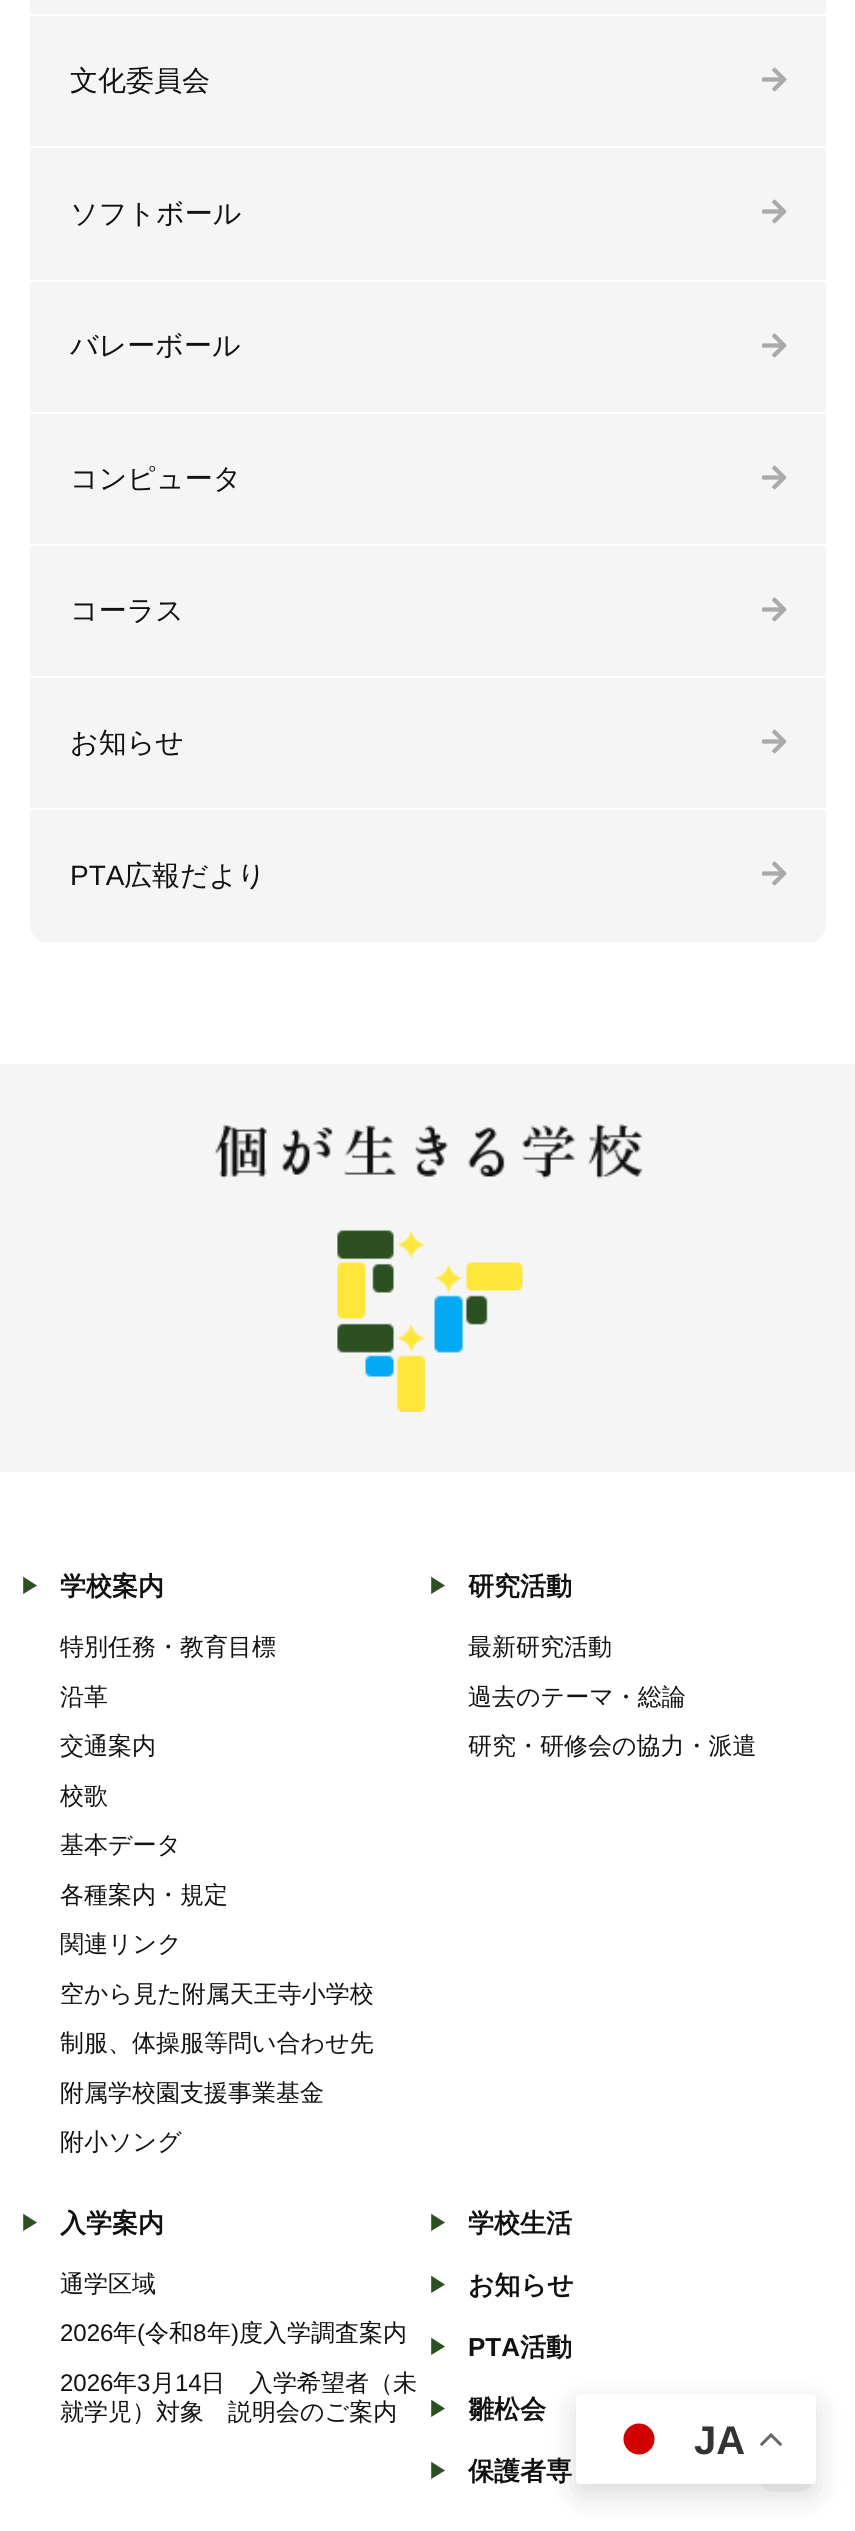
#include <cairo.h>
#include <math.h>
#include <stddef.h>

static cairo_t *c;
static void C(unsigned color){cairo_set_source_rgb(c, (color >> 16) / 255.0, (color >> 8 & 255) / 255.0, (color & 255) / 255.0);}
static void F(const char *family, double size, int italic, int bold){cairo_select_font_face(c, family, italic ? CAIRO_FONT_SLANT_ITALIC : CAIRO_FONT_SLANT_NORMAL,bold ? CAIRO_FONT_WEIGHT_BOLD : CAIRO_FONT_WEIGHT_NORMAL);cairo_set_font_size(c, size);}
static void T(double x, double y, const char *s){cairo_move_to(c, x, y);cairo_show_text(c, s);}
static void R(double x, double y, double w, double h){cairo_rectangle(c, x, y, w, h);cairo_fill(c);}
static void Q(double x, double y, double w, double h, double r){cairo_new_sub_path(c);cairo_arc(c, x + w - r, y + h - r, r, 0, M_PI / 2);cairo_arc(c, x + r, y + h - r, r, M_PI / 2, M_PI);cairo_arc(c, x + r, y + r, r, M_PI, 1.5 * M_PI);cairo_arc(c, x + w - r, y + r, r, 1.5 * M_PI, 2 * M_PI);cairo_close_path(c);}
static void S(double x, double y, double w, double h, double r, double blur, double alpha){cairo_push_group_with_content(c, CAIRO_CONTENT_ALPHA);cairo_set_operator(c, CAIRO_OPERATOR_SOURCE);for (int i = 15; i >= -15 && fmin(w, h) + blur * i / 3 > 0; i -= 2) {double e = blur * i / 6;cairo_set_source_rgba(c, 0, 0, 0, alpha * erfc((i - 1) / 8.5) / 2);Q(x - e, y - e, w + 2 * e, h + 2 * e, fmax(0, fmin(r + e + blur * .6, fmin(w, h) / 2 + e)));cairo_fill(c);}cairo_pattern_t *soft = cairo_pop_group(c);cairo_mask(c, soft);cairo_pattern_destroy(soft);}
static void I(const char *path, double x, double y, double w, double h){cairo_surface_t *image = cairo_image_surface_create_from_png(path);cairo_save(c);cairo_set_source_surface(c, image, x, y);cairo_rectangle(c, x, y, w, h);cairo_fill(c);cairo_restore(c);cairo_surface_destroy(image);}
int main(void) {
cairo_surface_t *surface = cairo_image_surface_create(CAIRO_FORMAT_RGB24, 855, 2531);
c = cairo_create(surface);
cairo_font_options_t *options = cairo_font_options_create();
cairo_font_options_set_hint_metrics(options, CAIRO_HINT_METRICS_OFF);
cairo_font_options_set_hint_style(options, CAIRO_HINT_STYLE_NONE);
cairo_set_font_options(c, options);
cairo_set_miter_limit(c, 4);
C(0xffffff);
cairo_paint(c);
C(0xf5f5f5);
Q(30,-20,796,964,20);
cairo_fill(c);
C(0xffffff);
R(30,14,796,2);
R(30,146,796,2);
F("WenQuanYi Zen Hei Medium",28,0,0);
C(0x111111);
T(70,90,"文化委員会");
I("1.png",762,67,25,25);
C(0xffffff);
R(30,280,796,2);
C(0x111111);
T(70,223,"ソフトボール");
I("1.png",762,199,25,25);
C(0xffffff);
R(30,412,796,2);
C(0x111111);
T(70,355,"バレーボール");
I("1.png",762,333,25,25);
C(0xffffff);
R(30,544,796,2);
C(0x111111);
T(70,488,"コンピュータ");
I("1.png",762,465,25,25);
C(0xffffff);
R(30,676,796,2);
C(0x111111);
T(70,620,"コーラス");
I("1.png",762,597,25,25);
C(0xffffff);
R(30,808,796,2);
C(0x111111);
T(70,752,"お知らせ");
I("1.png",762,729,25,25);
C(0xffffff);
R(42,942,772,2);
F("Liberation Sans",28,0,0);
C(0x111111);
T(70,885,"PTA");
F("WenQuanYi Zen Hei Medium",28,0,0);
T(124,885,"広報だより");
I("1.png",762,861,25,25);
C(0xf5f5f5);
R(0,1064,855,408);
I("2.png",214,1124,428,288);
F("WenQuanYi Zen Hei",20,0,1);
C(0x2d5023);
T(20,1593,"▶");
F("WenQuanYi Zen Hei",26,0,1);
C(0x111111);
T(60,1595,"学校案内");
F("WenQuanYi Zen Hei Medium",24,0,0);
T(60,1655,"特別任務・教育目標");
T(60,1705,"沿革");
T(60,1754,"交通案内");
T(60,1804,"校歌");
T(60,1853,"基本データ");
T(60,1903,"各種案内・規定");
T(60,1952,"関連リンク");
T(60,2002,"空から見た附属天王寺小学校");
T(60,2051,"制服、体操服等問い合わせ先");
T(60,2101,"附属学校園支援事業基金");
T(60,2150,"附小ソング");
F("WenQuanYi Zen Hei",20,0,1);
C(0x2d5023);
T(428,1593,"▶");
F("WenQuanYi Zen Hei",26,0,1);
C(0x111111);
T(468,1595,"研究活動");
F("WenQuanYi Zen Hei Medium",24,0,0);
T(468,1655,"最新研究活動");
T(468,1705,"過去のテーマ・総論");
T(468,1754,"研究・研修会の協力・派遣");
F("WenQuanYi Zen Hei",20,0,1);
C(0x2d5023);
T(20,2230,"▶");
F("WenQuanYi Zen Hei",26,0,1);
C(0x111111);
T(60,2232,"入学案内");
F("WenQuanYi Zen Hei Medium",24,0,0);
T(60,2292,"通学区域");
F("Liberation Sans",24,0,0);
T(60,2341,"2026");
F("WenQuanYi Zen Hei Medium",24,0,0);
T(113,2341,"年");
F("Liberation Sans",24,0,0);
T(137,2341,"(");
F("WenQuanYi Zen Hei Medium",24,0,0);
T(145,2341,"令和");
F("Liberation Sans",24,0,0);
T(193,2341,"8");
F("WenQuanYi Zen Hei Medium",24,0,0);
T(207,2341,"年");
F("Liberation Sans",24,0,0);
T(231,2341,")");
F("WenQuanYi Zen Hei Medium",24,0,0);
T(239,2341,"度入学調査案内");
F("Liberation Sans",24,0,0);
T(60,2391,"2026");
F("WenQuanYi Zen Hei Medium",24,0,0);
T(113,2391,"年");
F("Liberation Sans",24,0,0);
T(137,2391,"3");
F("WenQuanYi Zen Hei Medium",24,0,0);
T(151,2391,"月");
F("Liberation Sans",24,0,0);
T(175,2391,"14");
F("WenQuanYi Zen Hei Medium",24,0,0);
T(201,2391,"日　入学希望者（未");
T(60,2420,"就学児）対象　説明会のご案内");
F("WenQuanYi Zen Hei",20,0,1);
C(0x2d5023);
T(428,2230,"▶");
F("WenQuanYi Zen Hei",26,0,1);
C(0x111111);
T(468,2232,"学校生活");
F("WenQuanYi Zen Hei",20,0,1);
C(0x2d5023);
T(428,2292,"▶");
F("WenQuanYi Zen Hei",26,0,1);
C(0x111111);
T(468,2294,"お知らせ");
F("WenQuanYi Zen Hei",20,0,1);
C(0x2d5023);
T(428,2354,"▶");
F("Liberation Sans",26,0,1);
C(0x111111);
T(468,2356,"PTA");
F("WenQuanYi Zen Hei",26,0,1);
T(520,2356,"活動");
F("WenQuanYi Zen Hei",20,0,1);
C(0x2d5023);
T(428,2416,"▶");
F("WenQuanYi Zen Hei",26,0,1);
C(0x111111);
T(468,2418,"雛松会");
F("WenQuanYi Zen Hei",20,0,1);
C(0x2d5023);
T(428,2478,"▶");
F("WenQuanYi Zen Hei",26,0,1);
C(0x111111);
T(468,2480,"保護者専");
C(0xf5f5f5);
Q(756,2432,60,60,20);
cairo_fill(c);
C(0x000000);
S(576,2404,240,90,4,15,.15);
C(0xffffff);
Q(576,2394,240,90,4);
cairo_fill(c);
C(0xd30000);
cairo_arc(c,639,2439,15.5,0,2 * M_PI);
cairo_fill(c);
F("Liberation Sans",40,0,1);
C(0x333333);
T(694,2454,"JA");
I("3.png",760,2433,22,13);
cairo_surface_write_to_png(surface, "o.png");
cairo_font_options_destroy(options);
cairo_destroy(c);
cairo_surface_destroy(surface);
return 0;
}
